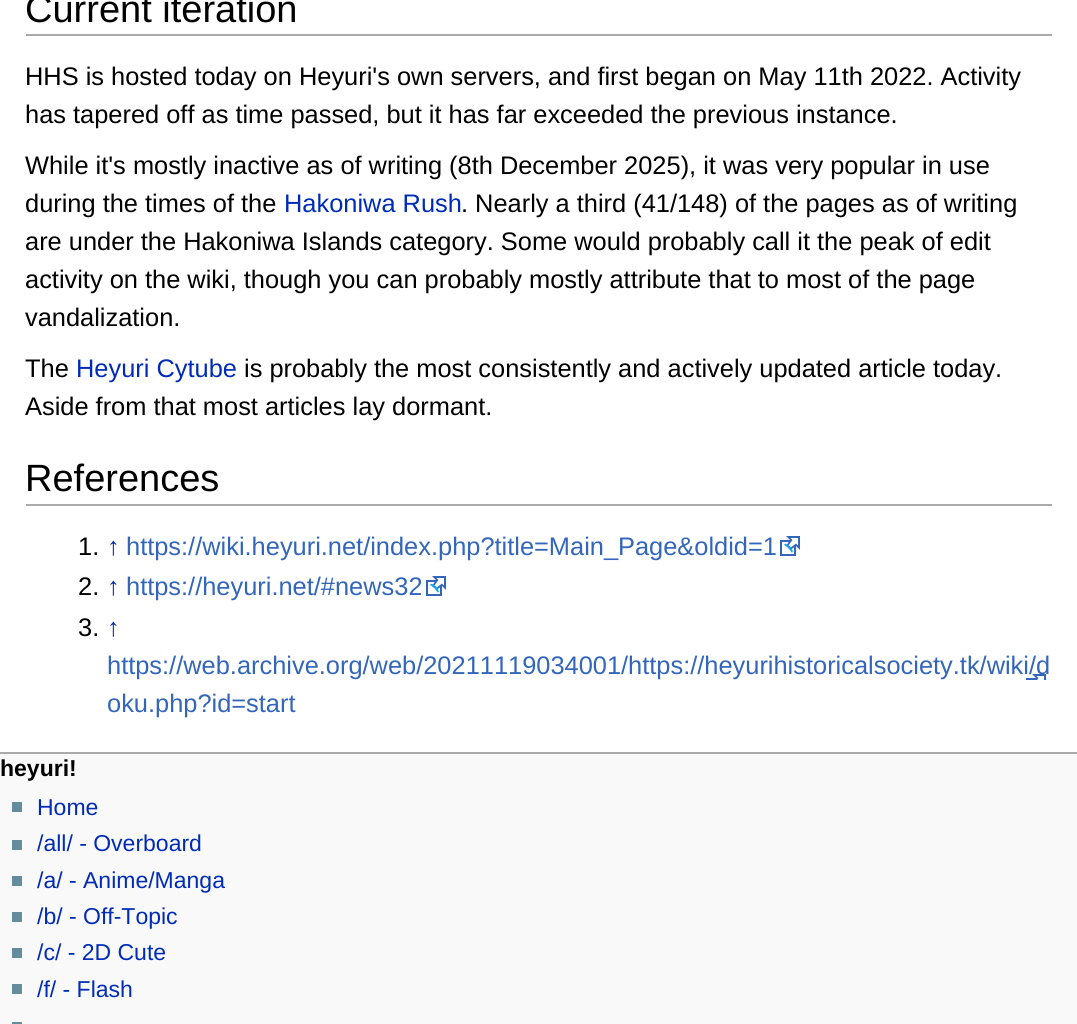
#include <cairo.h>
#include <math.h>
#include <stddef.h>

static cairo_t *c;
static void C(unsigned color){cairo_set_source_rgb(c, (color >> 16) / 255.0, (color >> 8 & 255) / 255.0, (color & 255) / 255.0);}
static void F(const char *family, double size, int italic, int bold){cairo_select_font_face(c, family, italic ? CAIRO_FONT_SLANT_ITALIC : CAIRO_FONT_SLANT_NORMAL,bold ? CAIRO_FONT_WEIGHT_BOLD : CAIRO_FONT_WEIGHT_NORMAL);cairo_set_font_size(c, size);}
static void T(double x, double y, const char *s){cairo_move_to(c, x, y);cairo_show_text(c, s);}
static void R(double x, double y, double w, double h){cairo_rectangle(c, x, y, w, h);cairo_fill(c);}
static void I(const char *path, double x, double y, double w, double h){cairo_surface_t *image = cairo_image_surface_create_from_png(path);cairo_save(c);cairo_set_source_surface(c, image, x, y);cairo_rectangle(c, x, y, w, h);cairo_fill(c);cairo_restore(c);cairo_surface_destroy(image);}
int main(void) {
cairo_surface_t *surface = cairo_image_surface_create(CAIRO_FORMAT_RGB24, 1077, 1024);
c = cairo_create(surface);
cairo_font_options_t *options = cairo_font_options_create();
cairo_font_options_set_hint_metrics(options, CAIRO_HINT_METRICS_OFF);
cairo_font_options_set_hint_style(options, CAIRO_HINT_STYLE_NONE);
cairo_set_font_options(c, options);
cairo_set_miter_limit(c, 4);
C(0xf9f9f9);
cairo_paint(c);
C(0xffffff);
R(0,0,1077,752);
C(0xaaaaaa);
R(0,752,1077,2);
R(26,34,1026,2);
F("Liberation Sans",38,0,0);
C(0x000000);
T(25,22,"Current iteration");
F("Liberation Sans",25.4,0,0);
T(25,85,"HHS is hosted today on Heyuri's own servers, and first began on May 11th 2022. Activity");
T(25,123,"has tapered off as time passed, but it has far exceeded the previous instance.");
T(25,174,"While it's mostly inactive as of writing (8th December 2025), it was very popular in use");
T(25,212,"during the times of the");
C(0x002bb8);
T(284,212,"Hakoniwa Rush");
C(0x000000);
T(461,212,". Nearly a third (41/148) of the pages as of writing");
T(25,250,"are under the Hakoniwa Islands category. Some would probably call it the peak of edit");
T(25,288,"activity on the wiki, though you can probably mostly attribute that to most of the page");
T(25,326,"vandalization.");
T(25,377,"The");
C(0x002bb8);
T(76,377,"Heyuri Cytube");
C(0x000000);
T(244,377,"is probably the most consistently and actively updated article today.");
T(25,415,"Aside from that most articles lay dormant.");
C(0xaaaaaa);
R(26,504,1026,2);
F("Liberation Sans",38,0,0);
C(0x000000);
T(25,491,"References");
F("Liberation Sans",25.4,0,0);
T(78,555,"1.");
C(0x002bb8);
T(107,555,"↑");
C(0x3366bb);
T(126,555,"https://wiki.heyuri.net/index.php?title=Main_Page&oldid=1");
I("1.png",780,536,20,20);
C(0x000000);
T(78,595,"2.");
C(0x002bb8);
T(107,595,"↑");
C(0x3366bb);
T(126,595,"https://heyuri.net/#news32");
I("1.png",426,576,20,20);
C(0x000000);
T(78,636,"3.");
C(0x002bb8);
T(107,636,"↑");
I("2.png",1026,674,20,6);
C(0x3366bb);
T(107,674,"https://web.archive.org/web/20211119034001/https://heyurihistoricalsociety.tk/wiki/d");
T(107,712,"oku.php?id=start");
F("Liberation Sans",23,0,1);
C(0x000000);
T(0,776,"heyuri!");
C(0x638c9c);
R(12,802,10,10);
F("Liberation Sans",23,0,0);
C(0x002bb8);
T(37,815,"Home");
C(0x638c9c);
R(12,840,10,10);
C(0x002bb8);
T(37,851,"/all/ - Overboard");
C(0x638c9c);
R(12,876,10,10);
C(0x002bb8);
T(37,888,"/a/ - Anime/Manga");
C(0x638c9c);
R(12,912,10,10);
C(0x002bb8);
T(37,924,"/b/ - Off-Topic");
C(0x638c9c);
R(12,948,10,10);
C(0x002bb8);
T(37,960,"/c/ - 2D Cute");
C(0x638c9c);
R(12,984,10,10);
C(0x002bb8);
T(37,997,"/f/ - Flash");
C(0x638c9c);
R(12,1022,10,2);
cairo_surface_write_to_png(surface, "o.png");
cairo_font_options_destroy(options);
cairo_destroy(c);
cairo_surface_destroy(surface);
return 0;
}
